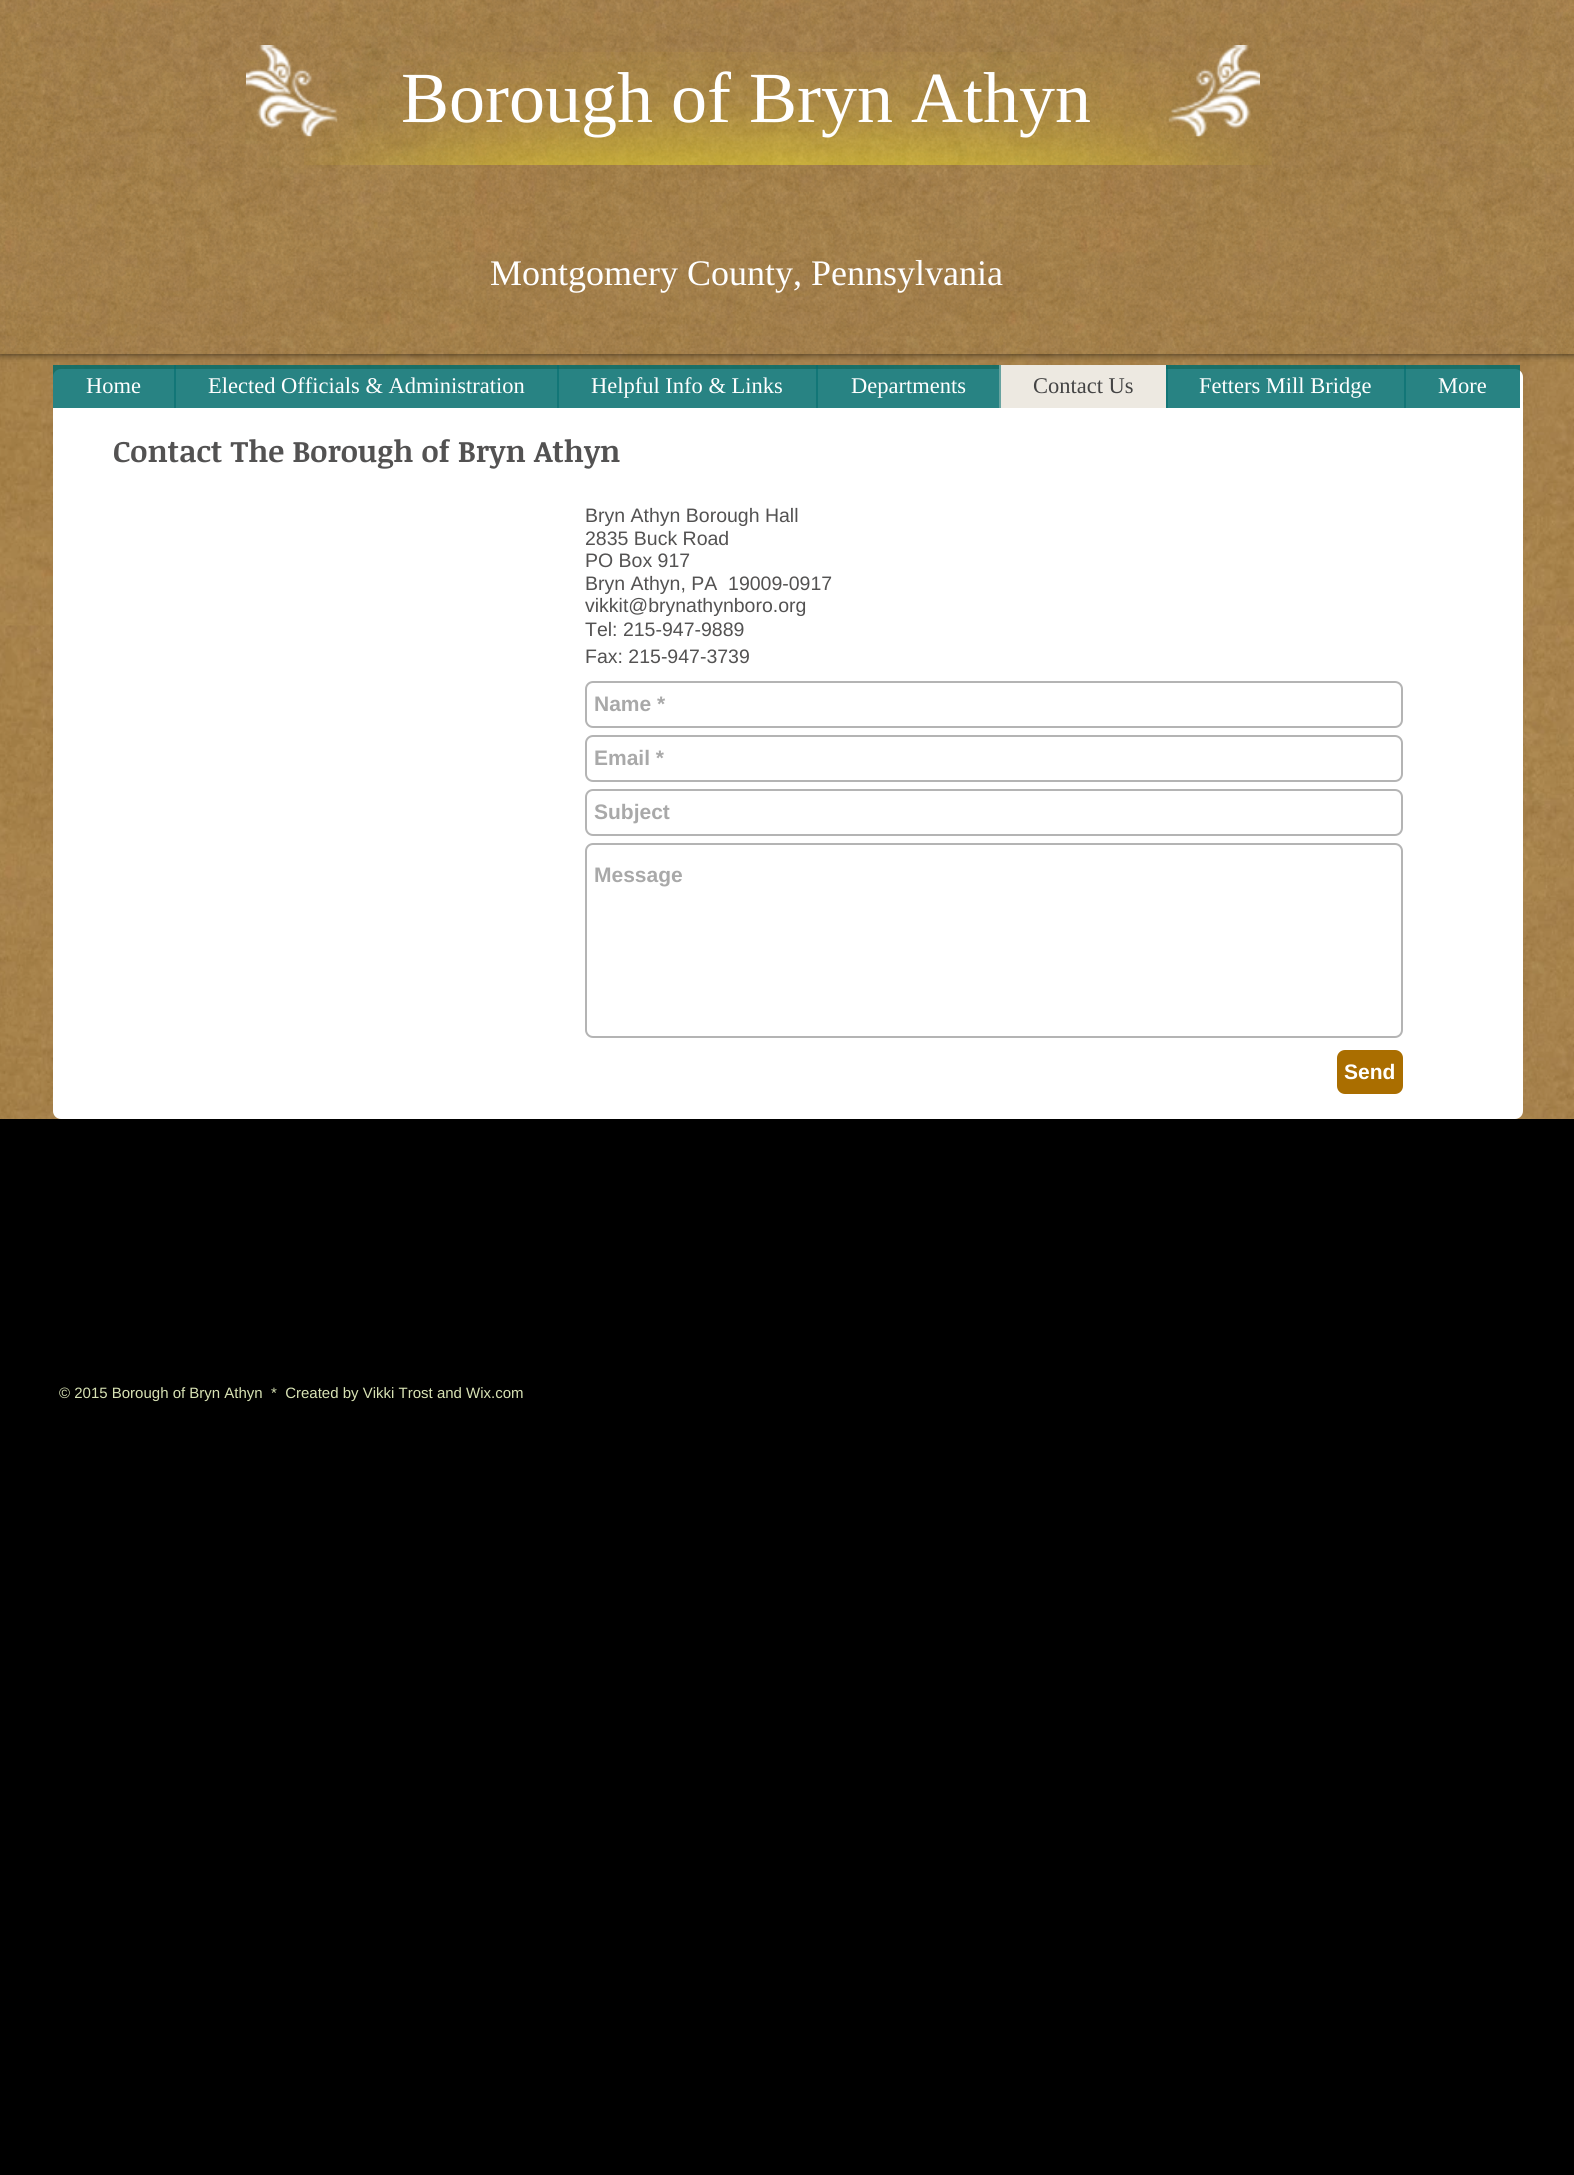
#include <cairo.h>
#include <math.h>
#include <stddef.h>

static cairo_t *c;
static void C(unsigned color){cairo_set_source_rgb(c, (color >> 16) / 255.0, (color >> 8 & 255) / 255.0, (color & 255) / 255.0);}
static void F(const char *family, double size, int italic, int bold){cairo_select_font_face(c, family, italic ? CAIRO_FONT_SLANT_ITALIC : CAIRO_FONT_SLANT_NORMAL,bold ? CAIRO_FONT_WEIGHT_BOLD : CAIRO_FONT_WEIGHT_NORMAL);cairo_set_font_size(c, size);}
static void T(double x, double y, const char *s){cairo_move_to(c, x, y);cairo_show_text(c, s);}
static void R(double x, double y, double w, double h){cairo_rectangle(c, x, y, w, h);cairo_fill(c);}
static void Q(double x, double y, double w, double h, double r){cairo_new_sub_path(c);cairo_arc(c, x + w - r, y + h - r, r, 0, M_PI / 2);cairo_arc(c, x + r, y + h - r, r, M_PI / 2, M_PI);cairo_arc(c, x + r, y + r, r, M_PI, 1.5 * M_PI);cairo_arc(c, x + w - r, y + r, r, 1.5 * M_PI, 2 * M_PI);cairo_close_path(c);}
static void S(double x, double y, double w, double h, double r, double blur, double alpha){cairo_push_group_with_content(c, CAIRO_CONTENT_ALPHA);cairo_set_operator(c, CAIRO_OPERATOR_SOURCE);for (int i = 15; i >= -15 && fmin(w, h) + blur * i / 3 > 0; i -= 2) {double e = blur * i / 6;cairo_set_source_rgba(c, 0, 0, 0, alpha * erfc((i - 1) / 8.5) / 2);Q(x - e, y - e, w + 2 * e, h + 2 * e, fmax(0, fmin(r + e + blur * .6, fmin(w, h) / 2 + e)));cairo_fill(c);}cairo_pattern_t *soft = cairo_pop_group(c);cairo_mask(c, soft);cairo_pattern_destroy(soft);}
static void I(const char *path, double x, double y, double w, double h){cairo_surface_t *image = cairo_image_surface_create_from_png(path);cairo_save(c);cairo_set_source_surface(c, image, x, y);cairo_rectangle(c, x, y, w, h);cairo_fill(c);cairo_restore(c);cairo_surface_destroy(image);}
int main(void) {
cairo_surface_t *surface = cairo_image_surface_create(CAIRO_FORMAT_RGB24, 1574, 2175);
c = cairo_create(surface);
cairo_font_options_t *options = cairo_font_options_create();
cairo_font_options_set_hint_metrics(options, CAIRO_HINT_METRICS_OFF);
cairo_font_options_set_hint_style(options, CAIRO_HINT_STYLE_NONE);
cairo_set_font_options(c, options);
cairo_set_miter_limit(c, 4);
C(0xffffff);
cairo_paint(c);
I("1.png",0,0,1574,1119);
cairo_save(c);
cairo_rectangle(c,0,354,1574,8);
cairo_clip(c);
C(0x000000);
S(0,0,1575,354,0,4,.7);
cairo_restore(c);
I("2.png",0,0,1574,354);
I("5.png",304,52,968,113);
I("3.png",246,45,92,92);
I("4.png",1168,45,92,92);
F("Liberation Serif",72,0,0);
C(0xffffff);
T(401,122,"Borough of Bryn Athyn");
F("Liberation Serif",36,0,0);
T(490,285,"Montgomery County, Pennsylvania");
Q(53,369,1470,750,8);
cairo_fill(c);
cairo_set_source_rgba(c,0,0.424,0.427,0.84);
R(53,365,1467,43);
F("Liberation Serif",22.5,0,0);
C(0xffffff);
T(86,393,"Home");
cairo_set_source_rgba(c,0,0.424,0.427,0.56);
R(174,365,2,43);
C(0xffffff);
T(208,393,"Elected Officials & Administration");
cairo_set_source_rgba(c,0,0.424,0.427,0.56);
R(557,365,2,43);
C(0xffffff);
T(591,393,"Helpful Info & Links");
cairo_set_source_rgba(c,0,0.424,0.427,0.56);
R(816,365,2,43);
C(0xffffff);
T(851,393,"Departments");
C(0xede9e1);
R(1001,365,165,43);
C(0x68a3a0);
R(999,365,2,43);
C(0x444444);
T(1033,393,"Contact Us");
cairo_set_source_rgba(c,0,0.424,0.427,0.56);
R(1166,365,2,43);
C(0xffffff);
T(1199,393,"Fetters Mill Bridge");
cairo_set_source_rgba(c,0,0.424,0.427,0.56);
R(1404,365,2,43);
C(0xffffff);
T(1438,393,"More");
F("Noticia Text",30,0,1);
C(0x535252);
T(113,462,"Contact The Borough of Bryn Athyn");
F("Liberation Sans",19.5,0,0);
T(585,522,"Bryn Athyn Borough Hall");
T(585,545,"2835 Buck Road");
T(585,567,"PO Box 917");
T(585,590,"Bryn Athyn, PA  19009-0917");
T(585,612,"vikkit@brynathynboro.org");
T(585,636,"Tel: 215-947-9889");
T(585,663,"Fax: 215-947-3739");
Q(586,682,816,45,7);
C(0xb4b4b4);
cairo_stroke(c);
F("Liberation Sans",21,0,1);
C(0xa9a9a9);
T(594,711,"Name *");
Q(586,736,816,45,7);
C(0xb4b4b4);
cairo_stroke(c);
C(0xa9a9a9);
T(594,765,"Email *");
Q(586,790,816,45,7);
C(0xb4b4b4);
cairo_stroke(c);
C(0xa9a9a9);
T(594,819,"Subject");
Q(586,844,816,193,7);
C(0xb4b4b4);
cairo_stroke(c);
C(0xa9a9a9);
T(594,882,"Message");
C(0xaa6e00);
Q(1337,1050,66,44,8);
cairo_fill(c);
C(0xffffff);
T(1344,1079,"Send");
C(0x000000);
R(0,1119,1574,1056);
F("Liberation Sans",15,0,0);
C(0xd8e2b4);
T(59,1398,"© 2015 Borough of Bryn Athyn  *  Created by Vikki Trost and Wix.com");
cairo_surface_write_to_png(surface, "o.png");
cairo_font_options_destroy(options);
cairo_destroy(c);
cairo_surface_destroy(surface);
return 0;
}
